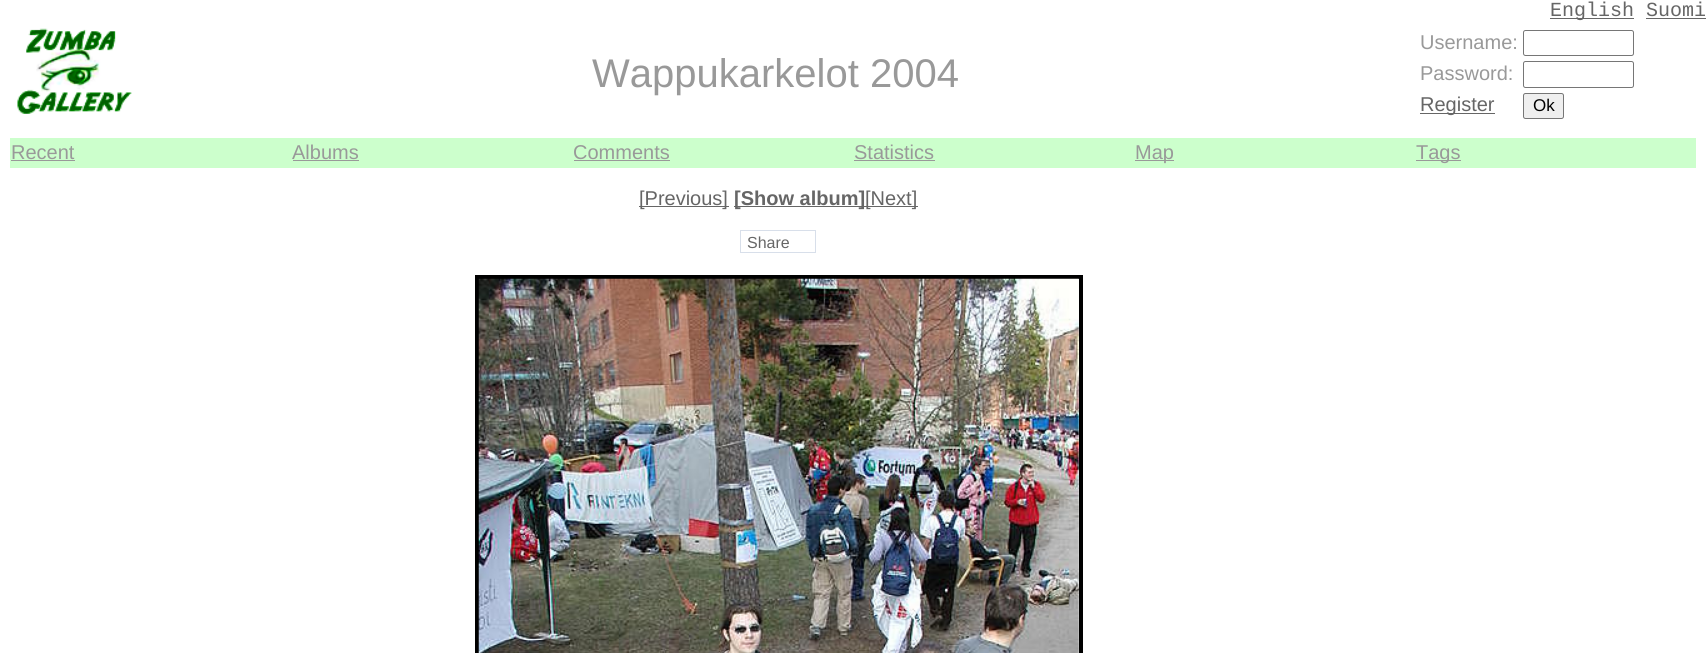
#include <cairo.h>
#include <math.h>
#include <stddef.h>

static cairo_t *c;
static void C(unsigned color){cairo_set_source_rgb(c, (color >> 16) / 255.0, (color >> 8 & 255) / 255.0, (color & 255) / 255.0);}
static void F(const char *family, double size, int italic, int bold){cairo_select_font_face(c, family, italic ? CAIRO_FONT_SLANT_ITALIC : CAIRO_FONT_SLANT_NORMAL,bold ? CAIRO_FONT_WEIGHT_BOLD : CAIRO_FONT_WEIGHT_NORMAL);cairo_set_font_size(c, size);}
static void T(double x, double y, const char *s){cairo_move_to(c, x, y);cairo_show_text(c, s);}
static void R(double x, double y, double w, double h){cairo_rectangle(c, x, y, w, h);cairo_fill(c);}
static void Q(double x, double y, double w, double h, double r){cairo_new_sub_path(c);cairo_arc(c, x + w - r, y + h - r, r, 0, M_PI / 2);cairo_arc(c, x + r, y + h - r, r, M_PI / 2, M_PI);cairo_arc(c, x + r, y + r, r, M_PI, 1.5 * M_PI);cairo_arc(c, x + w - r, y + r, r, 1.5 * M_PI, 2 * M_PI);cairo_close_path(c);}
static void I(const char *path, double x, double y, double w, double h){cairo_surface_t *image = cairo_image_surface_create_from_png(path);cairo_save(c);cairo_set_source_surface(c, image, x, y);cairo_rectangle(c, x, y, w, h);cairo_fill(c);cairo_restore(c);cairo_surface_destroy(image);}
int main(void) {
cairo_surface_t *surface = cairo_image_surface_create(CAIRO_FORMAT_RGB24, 1706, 653);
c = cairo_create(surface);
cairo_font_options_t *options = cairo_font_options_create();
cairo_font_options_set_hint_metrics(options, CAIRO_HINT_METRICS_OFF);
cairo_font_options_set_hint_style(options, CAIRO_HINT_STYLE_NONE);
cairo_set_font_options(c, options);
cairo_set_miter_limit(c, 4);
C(0xffffff);
cairo_paint(c);
C(0x666666);
R(1550,18,84,1);
F("Liberation Mono",20,0,0);
T(1550,16,"English Suomi");
R(1646,18,60,1);
I("1.png",17,28,115,86);
F("Liberation Sans",40,0,0);
C(0x999999);
T(592,87,"Wappukarkelot 2004");
F("Liberation Sans",20,0,0);
T(1420,49,"Username:");
Q(1523.5,30.5,110,25,2);
C(0x767676);
cairo_set_line_width(c,1);
cairo_stroke(c);
C(0x999999);
T(1420,80,"Password:");
Q(1523.5,61.5,110,26,2);
C(0x767676);
cairo_stroke(c);
C(0x666666);
R(1420,113,75,1);
T(1420,111,"Register");
C(0xefefef);
Q(1523.5,93.5,40,25,2);
cairo_fill_preserve(c);
C(0x767676);
cairo_stroke(c);
F("Liberation Sans",17,0,0);
C(0x000000);
T(1533,111,"Ok");
C(0xccffcc);
R(10,138,1686,30);
F("Liberation Sans",20,0,0);
C(0x999999);
T(11,159,"Recent");
R(11,160,64,1);
T(292,159,"Albums");
R(293,160,66,1);
T(573,159,"Comments");
R(574,160,96,1);
T(854,159,"Statistics");
R(854,160,81,1);
R(1135,160,39,1);
T(1135,159,"Map");
R(1416,160,45,1);
T(1416,159,"Tags");
C(0x666666);
R(639,206,90,1);
T(639,205,"[Previous]");
R(734,206,184,1);
F("Liberation Sans",20,0,1);
T(734,205,"[Show album]");
F("Liberation Sans",20,0,0);
T(865,205,"[Next]");
cairo_rectangle(c,740.5,230.5,75,22);
C(0xd8dfea);
cairo_stroke(c);
F("Liberation Sans",16,0,0);
C(0x666666);
T(747,248,"Share");
cairo_rectangle(c,477,277,604,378);
C(0x000000);
cairo_set_line_width(c,4);
cairo_stroke(c);
I("2.png",478,278,601,375);
cairo_surface_write_to_png(surface, "o.png");
cairo_font_options_destroy(options);
cairo_destroy(c);
cairo_surface_destroy(surface);
return 0;
}
